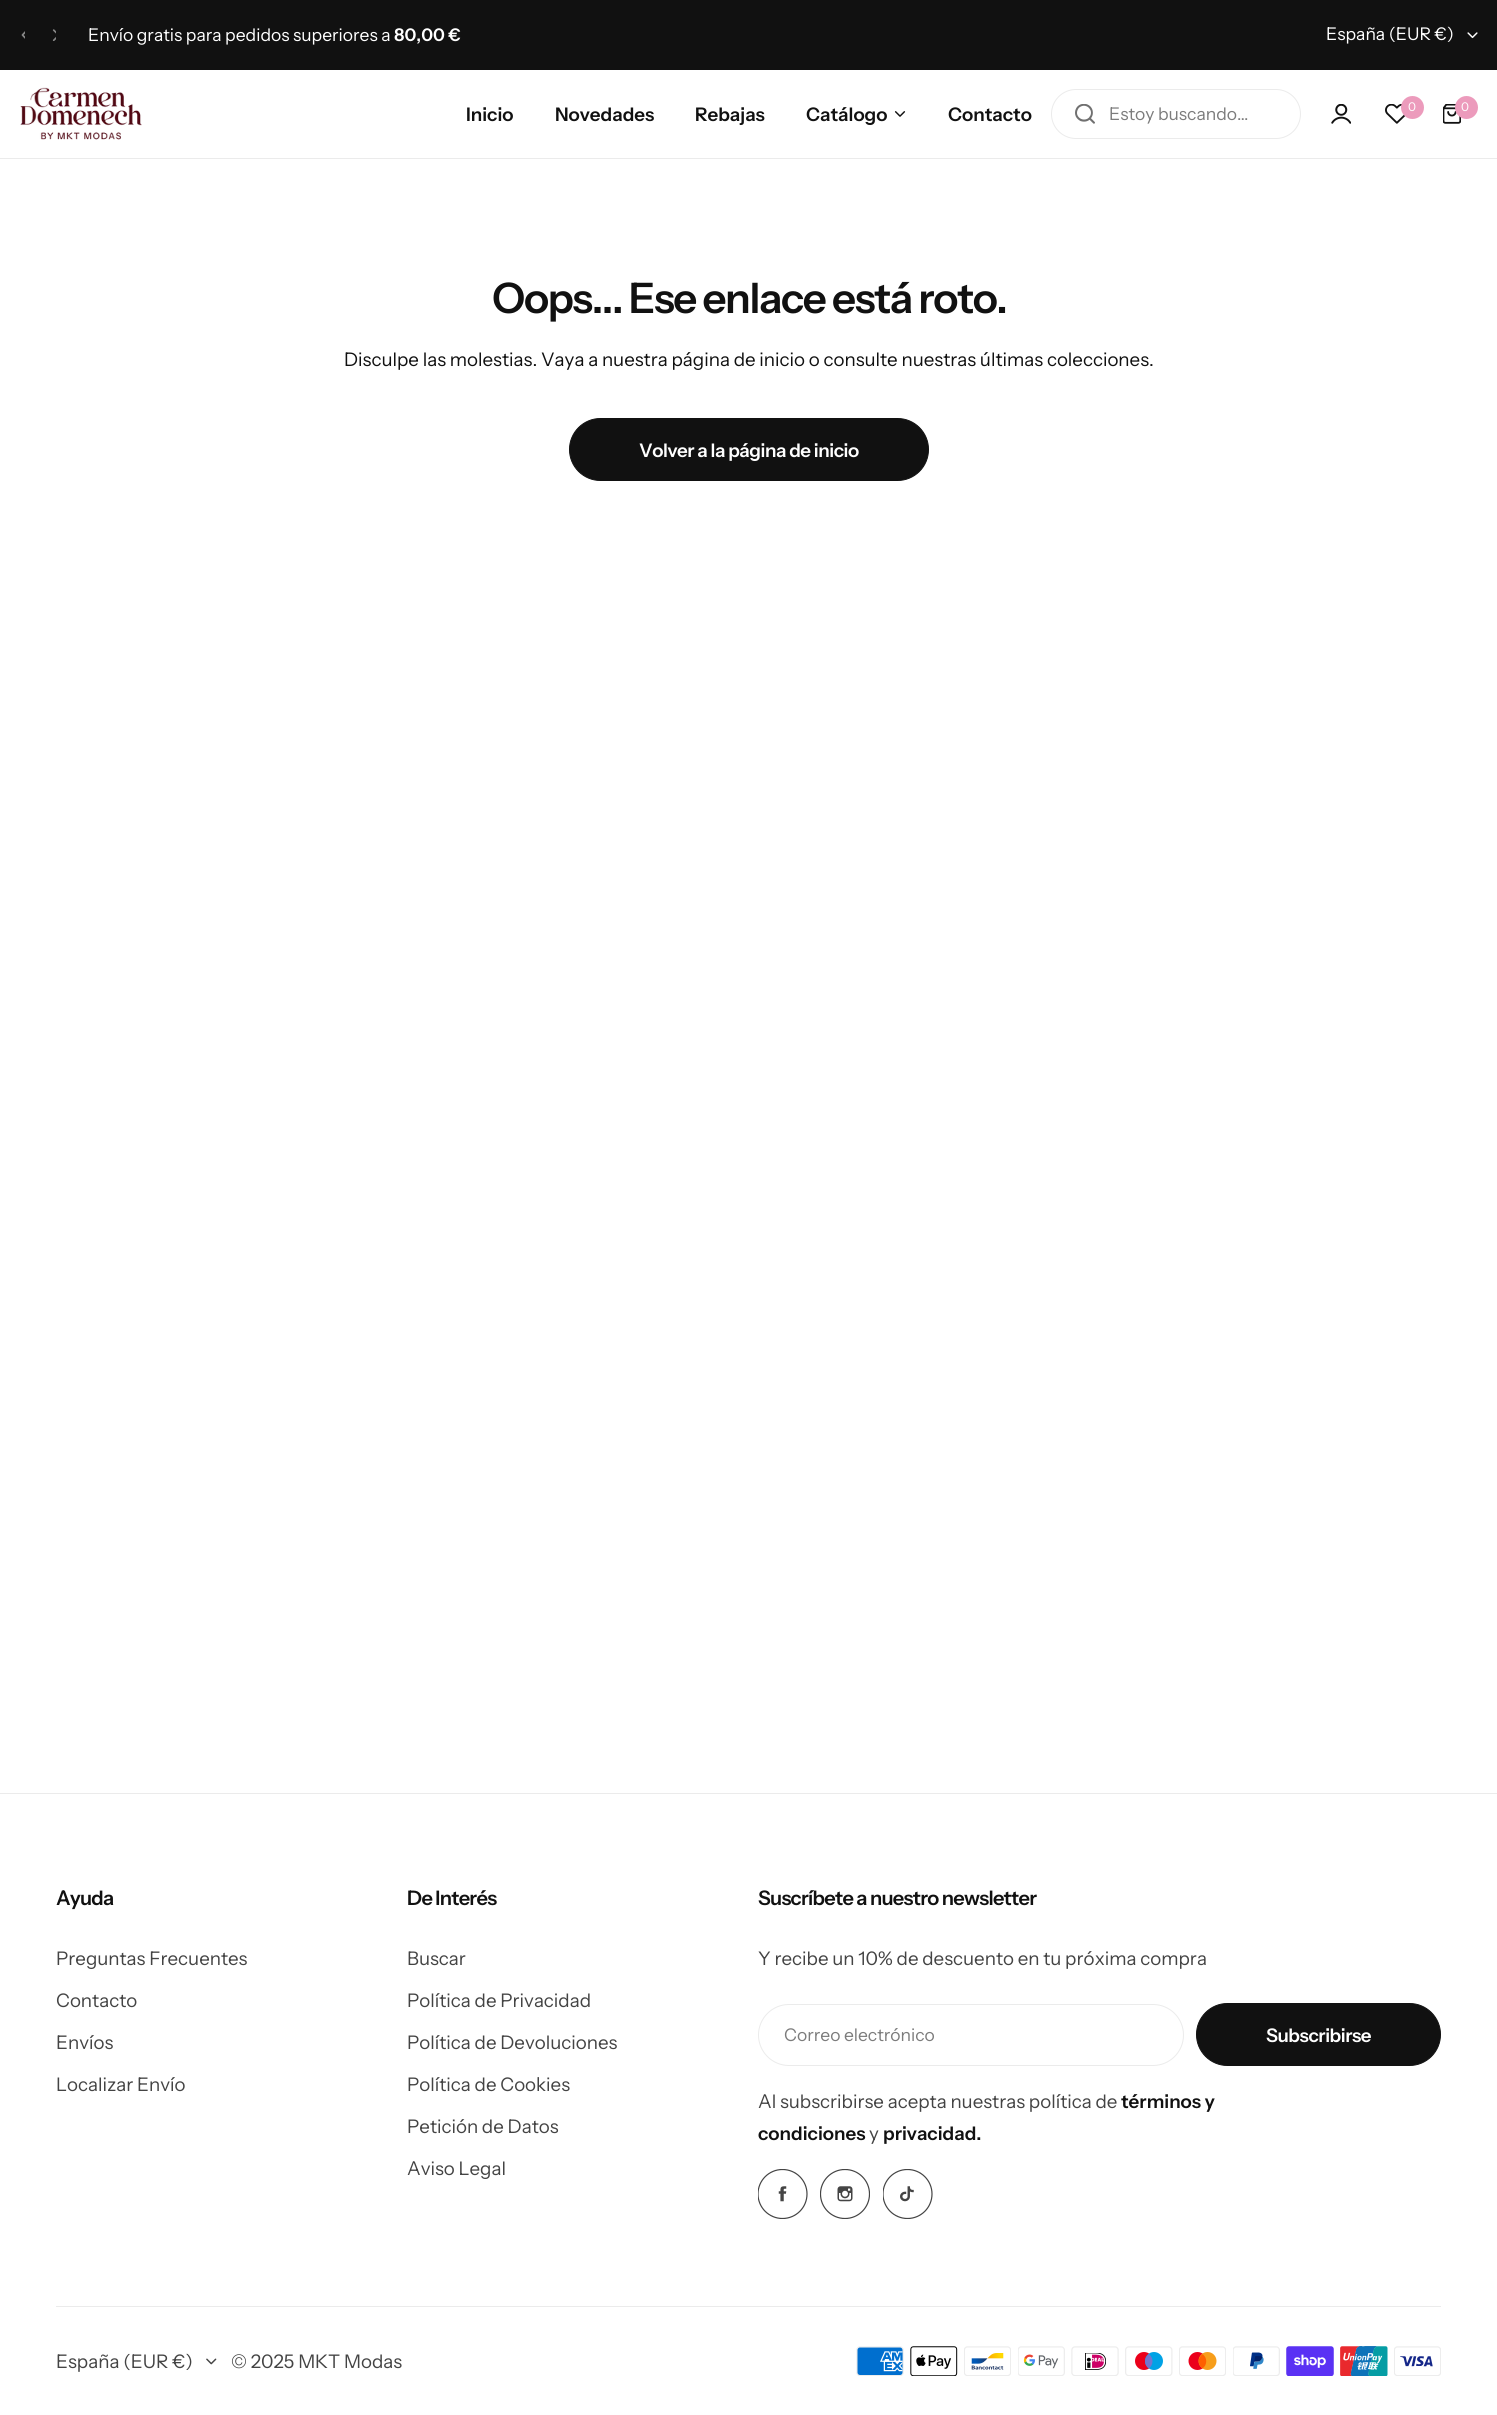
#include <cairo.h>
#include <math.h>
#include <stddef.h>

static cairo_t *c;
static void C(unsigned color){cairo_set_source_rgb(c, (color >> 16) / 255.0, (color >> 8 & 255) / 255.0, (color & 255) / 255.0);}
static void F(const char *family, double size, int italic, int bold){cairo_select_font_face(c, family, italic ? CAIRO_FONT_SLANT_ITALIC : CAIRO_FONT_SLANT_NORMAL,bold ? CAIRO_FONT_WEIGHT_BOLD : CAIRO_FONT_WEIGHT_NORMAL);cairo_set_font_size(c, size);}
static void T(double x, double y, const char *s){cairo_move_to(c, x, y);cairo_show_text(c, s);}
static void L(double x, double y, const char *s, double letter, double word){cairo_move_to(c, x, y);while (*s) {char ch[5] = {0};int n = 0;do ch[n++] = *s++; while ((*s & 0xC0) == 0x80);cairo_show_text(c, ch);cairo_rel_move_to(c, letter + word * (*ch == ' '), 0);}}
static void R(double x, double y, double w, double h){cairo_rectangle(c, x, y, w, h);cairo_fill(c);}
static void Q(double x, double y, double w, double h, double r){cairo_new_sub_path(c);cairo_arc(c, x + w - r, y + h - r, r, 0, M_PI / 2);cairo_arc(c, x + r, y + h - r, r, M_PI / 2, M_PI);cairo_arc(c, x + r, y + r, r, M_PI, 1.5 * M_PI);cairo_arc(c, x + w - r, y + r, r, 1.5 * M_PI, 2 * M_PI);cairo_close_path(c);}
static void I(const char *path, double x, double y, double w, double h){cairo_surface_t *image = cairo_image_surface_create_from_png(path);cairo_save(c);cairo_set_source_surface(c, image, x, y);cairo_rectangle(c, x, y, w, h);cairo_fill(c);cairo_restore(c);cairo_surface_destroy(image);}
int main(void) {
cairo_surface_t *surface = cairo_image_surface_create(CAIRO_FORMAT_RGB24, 1497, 2415);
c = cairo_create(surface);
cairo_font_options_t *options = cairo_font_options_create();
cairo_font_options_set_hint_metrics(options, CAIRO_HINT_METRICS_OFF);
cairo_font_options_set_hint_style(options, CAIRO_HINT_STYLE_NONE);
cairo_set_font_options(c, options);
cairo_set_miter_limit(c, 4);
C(0xffffff);
cairo_paint(c);
C(0x111111);
R(0,0,1497,70);
I("1.png",21,31,4,8);
I("2.png",52,29,4,12);
F("Instrument Sans",17.5,0,0);
C(0xffffff);
T(88,41,"Envío gratis para pedidos superiores a");
F("Instrument Sans SemiBold",17.5,0,0);
T(394,41,"80,00 €");
F("Instrument Sans",17.5,0,0);
T(1326,40,"España (EUR €)");
I("3.png",1467,32,11,7);
C(0xebebeb);
R(0,158,1497,1);
I("4.png",20,87,122,53);
F("Instrument Sans SemiBold",18.75,0,0);
C(0x111111);
T(466,121,"Inicio");
T(555,121,"Novedades");
T(695,121,"Rebajas");
T(806,121,"Catálogo");
I("5.png",894,111,12,6);
T(948,121,"Contacto");
Q(1051.5,89.5,249,49,24.5);
C(0xebebeb);
cairo_set_line_width(c,1);
cairo_stroke(c);
I("6.png",1075,104,20,20);
F("Instrument Sans",17.5,0,0);
C(0x7c7c7c);
T(1109,120,"Estoy buscando…");
I("7.png",1331,104,20,20);
I("8.png",1385,104,21,20);
C(0xec9bbc);
cairo_arc(c,1412.5,107.5,11.5,0,2 * M_PI);
cairo_fill(c);
F("Instrument Sans",12,0,0);
C(0xffffff);
T(1408,111,"0");
I("9.png",1443,104,18,20);
C(0xec9bbc);
cairo_arc(c,1466.5,107.5,11.5,0,2 * M_PI);
cairo_fill(c);
C(0xffffff);
T(1461,111,"0");
F("Instrument Sans SemiBold",42,0,0);
C(0x111111);
L(492,313,"Oops... Ese enlace está roto.",-1.4,0);
F("Instrument Sans",18.75,0,0);
T(344,366,"Disculpe las molestias. Vaya a nuestra página de inicio o consulte nuestras últimas colecciones.");
Q(569.5,418.5,359,62,31);
cairo_fill_preserve(c);
cairo_stroke(c);
F("Instrument Sans SemiBold",18.75,0,0);
C(0xffffff);
L(639,457,"Volver a la página de inicio",-.45,0);
C(0xebebeb);
R(0,1793,1497,1);
F("Instrument Sans SemiBold",20,0,0);
C(0x111111);
L(56,1905,"Ayuda",-.7,0);
F("Instrument Sans",18.75,0,0);
C(0x444444);
T(56,1965,"Preguntas Frecuentes");
T(56,2007,"Contacto");
T(56,2049,"Envíos");
T(56,2091,"Localizar Envío");
F("Instrument Sans SemiBold",20,0,0);
C(0x111111);
L(407,1905,"De Interés",-.7,0);
F("Instrument Sans",18.75,0,0);
C(0x444444);
T(407,1965,"Buscar");
T(407,2007,"Política de Privacidad");
T(407,2049,"Política de Devoluciones");
T(407,2091,"Política de Cookies");
T(407,2133,"Petición de Datos");
T(407,2175,"Aviso Legal");
F("Instrument Sans SemiBold",20,0,0);
C(0x111111);
L(758,1905,"Suscríbete a nuestro newsletter",-.7,0);
F("Instrument Sans",18.75,0,0);
C(0x444444);
T(758,1965,"Y recibe un 10% de descuento en tu próxima compra");
Q(758.5,2004.5,425,61,30.5);
C(0xebebeb);
cairo_stroke(c);
F("Instrument Sans",17.5,0,0);
C(0x7c7c7c);
T(784,2041,"Correo electrónico");
C(0x111111);
Q(1196.5,2003.5,244,62,31);
cairo_fill_preserve(c);
cairo_stroke(c);
F("Instrument Sans SemiBold",18.75,0,0);
C(0xffffff);
L(1266,2042,"Subscribirse",-.45,0);
F("Instrument Sans",18.75,0,0);
C(0x444444);
T(758,2108,"Al subscribirse acepta nuestras política de");
F("Instrument Sans SemiBold",18.75,0,0);
C(0x111111);
T(1121,2108,"términos y");
T(758,2140,"condiciones");
F("Instrument Sans",18.75,0,0);
C(0x444444);
T(869,2140,"y");
F("Instrument Sans SemiBold",18.75,0,0);
C(0x111111);
T(883,2140,"privacidad.");
I("10.png",758,2169,50,50);
I("11.png",820,2169,50,50);
I("12.png",883,2169,50,50);
C(0xebebeb);
R(56,2306,1385,1);
F("Instrument Sans",18.75,0,0);
C(0x444444);
T(56,2368,"España (EUR €)");
I("13.png",206,2358,11,7);
T(231,2368,"© 2025 MKT Modas");
I("14.png",856,2346,48,30);
I("15.png",910,2346,48,30);
I("16.png",964,2346,47,30);
I("17.png",1018,2346,47,30);
I("18.png",1071,2346,48,30);
I("19.png",1125,2346,48,30);
I("20.png",1179,2346,47,30);
I("21.png",1233,2346,47,30);
I("22.png",1286,2346,48,30);
I("23.png",1340,2346,48,30);
I("24.png",1394,2346,47,30);
cairo_surface_write_to_png(surface, "o.png");
cairo_font_options_destroy(options);
cairo_destroy(c);
cairo_surface_destroy(surface);
return 0;
}
